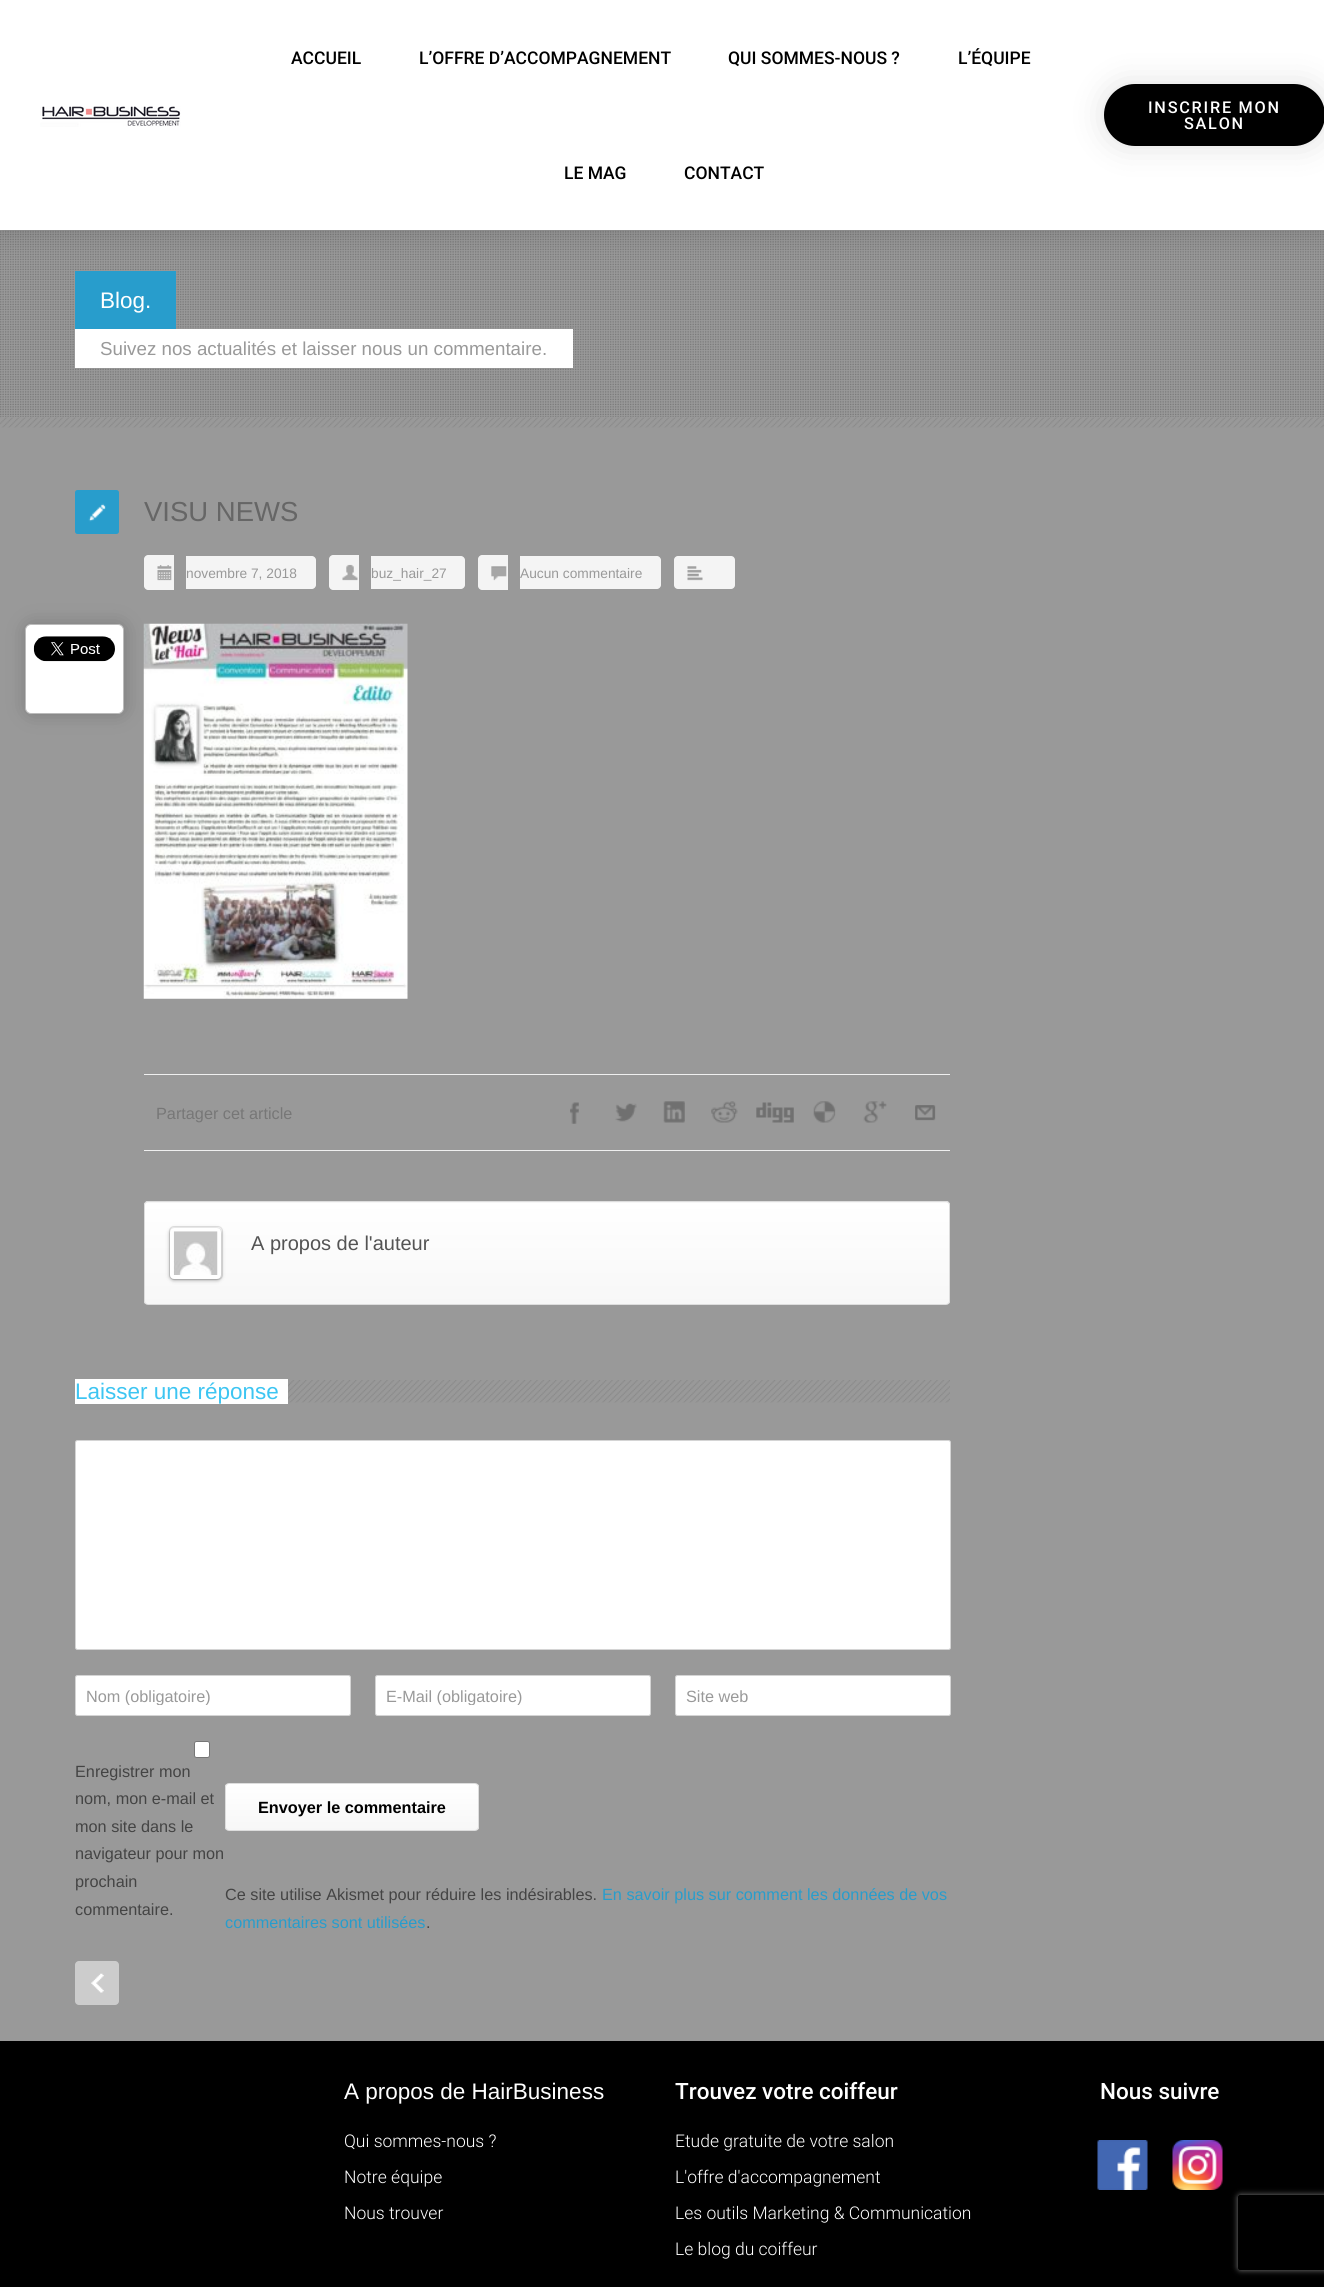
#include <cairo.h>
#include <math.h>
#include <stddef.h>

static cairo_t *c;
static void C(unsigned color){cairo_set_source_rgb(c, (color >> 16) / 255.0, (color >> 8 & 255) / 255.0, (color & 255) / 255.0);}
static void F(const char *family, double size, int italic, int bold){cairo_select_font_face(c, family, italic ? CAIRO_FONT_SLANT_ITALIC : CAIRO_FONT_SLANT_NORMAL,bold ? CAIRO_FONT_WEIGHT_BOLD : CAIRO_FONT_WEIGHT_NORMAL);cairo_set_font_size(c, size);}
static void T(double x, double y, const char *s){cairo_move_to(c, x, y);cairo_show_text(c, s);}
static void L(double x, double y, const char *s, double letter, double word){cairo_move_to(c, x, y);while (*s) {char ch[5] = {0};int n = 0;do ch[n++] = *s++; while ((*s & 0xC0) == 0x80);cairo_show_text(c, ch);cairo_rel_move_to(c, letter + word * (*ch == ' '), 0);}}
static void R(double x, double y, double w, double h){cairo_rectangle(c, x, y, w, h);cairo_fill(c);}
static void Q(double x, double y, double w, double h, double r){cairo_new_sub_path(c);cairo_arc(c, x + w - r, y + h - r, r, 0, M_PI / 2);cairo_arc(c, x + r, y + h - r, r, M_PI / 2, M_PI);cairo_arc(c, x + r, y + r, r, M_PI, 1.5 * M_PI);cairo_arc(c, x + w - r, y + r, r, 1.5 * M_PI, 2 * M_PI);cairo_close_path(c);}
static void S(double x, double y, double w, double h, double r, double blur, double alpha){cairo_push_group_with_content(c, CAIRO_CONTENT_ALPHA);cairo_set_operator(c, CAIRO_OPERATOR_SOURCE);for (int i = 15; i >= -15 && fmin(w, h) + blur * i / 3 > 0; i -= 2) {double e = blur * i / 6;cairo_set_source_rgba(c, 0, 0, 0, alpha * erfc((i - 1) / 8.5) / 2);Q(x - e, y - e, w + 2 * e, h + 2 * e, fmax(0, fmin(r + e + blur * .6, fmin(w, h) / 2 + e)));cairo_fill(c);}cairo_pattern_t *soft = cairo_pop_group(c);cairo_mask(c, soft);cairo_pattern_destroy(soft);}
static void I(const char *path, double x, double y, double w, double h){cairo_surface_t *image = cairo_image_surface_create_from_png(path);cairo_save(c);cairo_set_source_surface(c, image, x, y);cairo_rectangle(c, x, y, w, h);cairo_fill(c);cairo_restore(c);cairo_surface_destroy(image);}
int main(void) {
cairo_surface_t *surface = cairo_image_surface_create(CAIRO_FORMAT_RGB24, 1324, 2287);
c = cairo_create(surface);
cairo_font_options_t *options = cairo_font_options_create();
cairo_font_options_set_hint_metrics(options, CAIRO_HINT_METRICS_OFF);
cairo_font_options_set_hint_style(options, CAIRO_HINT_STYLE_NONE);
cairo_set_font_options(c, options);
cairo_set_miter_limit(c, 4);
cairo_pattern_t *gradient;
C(0x999999);
cairo_paint(c);
I("2.png",0,230,1324,187);
C(0x289dcc);
R(75,271,101,58);
C(0x000000);
S(0,0,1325,230,0,15,.15);
C(0xffffff);
R(0,0,1324,230);
I("1.png",40,106,141,21);
F("Roboto Medium",17.5,0,0);
C(0x000000);
T(291,64,"ACCUEIL");
T(419,64,"L’OFFRE D’ACCOMPAGNEMENT");
T(728,64,"QUI SOMMES-NOUS ?");
T(958,64,"L’ÉQUIPE");
T(564,179,"LE MAG");
T(684,179,"CONTACT");
C(0x000000);
S(1104,84,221,62,31,17,.12);
C(0x000000);
Q(1104,84,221,62,31);
cairo_fill(c);
F("Roboto Medium",16.25,0,0);
C(0xffffff);
L(1148,113,"INSCRIRE MON",1.75,0);
L(1184,129,"SALON",1.75,0);
F("Liberation Sans",22.5,0,0);
T(100,308,"Blog.");
R(75,329,498,39);
F("Liberation Sans",18.75,0,0);
C(0x999999);
T(100,355,"Suivez nos actualités et laisser nous un commentaire.");
I("3.png",0,417,1324,11);
C(0x289dcc);
Q(75,490,44,44,2.5);
cairo_fill(c);
I("4.png",88,503,18,19);
F("Liberation Sans",27.5,0,0);
C(0x666666);
T(144,521,"VISU NEWS");
C(0xf4f4f4);
cairo_new_path(c);
cairo_move_to(c,148,555);
cairo_line_to(c,174,555);
cairo_line_to(c,174,590);
cairo_line_to(c,148,590);
cairo_curve_to(c,146,590,144,588,144,586);
cairo_line_to(c,144,559);
cairo_curve_to(c,144,557,146,555,148,555);
cairo_close_path(c);
cairo_fill(c);
cairo_new_path(c);
cairo_move_to(c,186,556);
cairo_line_to(c,312,556);
cairo_curve_to(c,314,556,316,558,316,560);
cairo_line_to(c,316,585);
cairo_curve_to(c,316,587,314,589,312,589);
cairo_line_to(c,186,589);
cairo_close_path(c);
cairo_fill(c);
I("5.png",157,565,15,16);
F("Liberation Sans",13.75,0,0);
C(0x999999);
T(186,578,"novembre 7, 2018");
C(0xf4f4f4);
cairo_new_path(c);
cairo_move_to(c,333,555);
cairo_line_to(c,359,555);
cairo_line_to(c,359,590);
cairo_line_to(c,333,590);
cairo_curve_to(c,331,590,329,588,329,586);
cairo_line_to(c,329,559);
cairo_curve_to(c,329,557,331,555,333,555);
cairo_close_path(c);
cairo_fill(c);
cairo_new_path(c);
cairo_move_to(c,371,556);
cairo_line_to(c,461,556);
cairo_curve_to(c,463,556,465,558,465,560);
cairo_line_to(c,465,585);
cairo_curve_to(c,465,587,463,589,461,589);
cairo_line_to(c,371,589);
cairo_close_path(c);
cairo_fill(c);
I("6.png",342,564,16,17);
C(0x999999);
T(371,578,"buz_hair_27");
C(0xf4f4f4);
cairo_new_path(c);
cairo_move_to(c,482,555);
cairo_line_to(c,508,555);
cairo_line_to(c,508,590);
cairo_line_to(c,482,590);
cairo_curve_to(c,480,590,478,588,478,586);
cairo_line_to(c,478,559);
cairo_curve_to(c,478,557,480,555,482,555);
cairo_close_path(c);
cairo_fill(c);
cairo_new_path(c);
cairo_move_to(c,520,556);
cairo_line_to(c,657,556);
cairo_curve_to(c,659,556,661,558,661,560);
cairo_line_to(c,661,585);
cairo_curve_to(c,661,587,659,589,657,589);
cairo_line_to(c,520,589);
cairo_close_path(c);
cairo_fill(c);
I("7.png",491,566,16,15);
C(0x999999);
T(520,578,"Aucun commentaire");
C(0xf4f4f4);
Q(674,556,61,33,4);
cairo_fill(c);
I("8.png",687,566,16,15);
I("9.png",143,623,265,376);
C(0xefefef);
R(144,1074,806,1);
R(144,1150,806,1);
F("Liberation Sans",16.25,0,0);
C(0x777777);
T(156,1119,"Partager cet article");
I("10.png",570,1102,9,22);
I("11.png",615,1103,22,19);
I("12.png",663,1101,22,22);
I("13.png",711,1101,27,22);
I("14.png",756,1102,38,21);
I("15.png",813,1101,23,22);
I("16.png",863,1101,24,22);
I("17.png",915,1105,21,16);
cairo_save(c);
Q(144,1201,806,104,4);
cairo_clip(c);
gradient = cairo_pattern_create_linear(547,1203,547,1101);
cairo_pattern_add_color_stop_rgba(gradient,0,0.969,0.969,0.969,1);
cairo_pattern_add_color_stop_rgba(gradient,1,1,1,1,1);
cairo_set_source(c,gradient);
cairo_pattern_destroy(gradient);
R(144,1201,806,2);
gradient = cairo_pattern_create_linear(547,1304,547,1203);
cairo_pattern_add_color_stop_rgba(gradient,0,0.969,0.969,0.969,1);
cairo_pattern_add_color_stop_rgba(gradient,1,1,1,1,1);
cairo_set_source(c,gradient);
cairo_pattern_destroy(gradient);
R(144,1203,806,101);
cairo_restore(c);
Q(144.5,1201.5,805,103,3.5);
C(0xdddddd);
cairo_set_line_width(c,1);
cairo_stroke(c);
Q(169.5,1226.5,53,53,4.5);
cairo_set_source_rgba(c,0,0,0,0.1);
cairo_stroke(c);
C(0x000000);
S(170,1229,51,51,4,2,.4);
Q(172,1230,47,47,2);
C(0xffffff);
cairo_set_line_width(c,4);
cairo_stroke(c);
I("18.png",173,1231,45,44);
F("Liberation Sans",20,0,0);
C(0x545454);
T(251,1250,"A propos de l'auteur");
I("19.png",288,1380,662,23);
C(0xffffff);
R(75,1379,213,25);
F("Liberation Sans",22.5,0,0);
C(0x3dc5f2);
T(75,1399,"Laisser une réponse");
C(0xffffff);
Q(75.5,1440.5,875,209,2);
cairo_fill_preserve(c);
C(0xd4d4d4);
cairo_set_line_width(c,1);
cairo_stroke(c);
C(0xffffff);
Q(75.5,1675.5,275,40,2);
cairo_fill_preserve(c);
C(0xd4d4d4);
cairo_stroke(c);
cairo_save(c);
cairo_rectangle(c,86,1686,254,19);
cairo_clip(c);
F("Liberation Sans",16.25,0,0);
C(0x999999);
T(86,1702,"Nom (obligatoire)");
cairo_restore(c);
C(0xffffff);
Q(375.5,1675.5,275,40,2);
cairo_fill_preserve(c);
C(0xd4d4d4);
cairo_stroke(c);
cairo_save(c);
cairo_rectangle(c,386,1686,254,19);
cairo_clip(c);
F("Liberation Sans",16.25,0,0);
C(0x999999);
T(386,1702,"E-Mail (obligatoire)");
cairo_restore(c);
C(0xffffff);
Q(675.5,1675.5,275,40,2);
cairo_fill_preserve(c);
C(0xd4d4d4);
cairo_stroke(c);
F("Liberation Sans",16.25,0,0);
C(0x999999);
T(686,1702,"Site web");
C(0xffffff);
Q(194.5,1741.5,15,16,2);
cairo_fill_preserve(c);
C(0x767676);
cairo_stroke(c);
C(0x444444);
T(75,1777,"Enregistrer mon");
T(75,1804,"nom, mon e-mail et");
T(75,1832,"mon site dans le");
T(75,1859,"navigateur pour mon");
T(75,1887,"prochain");
T(75,1915,"commentaire.");
cairo_save(c);
Q(225,1783,254,48,4);
cairo_clip(c);
gradient = cairo_pattern_create_linear(352,1830,352,1784);
cairo_pattern_add_color_stop_rgba(gradient,0,0.969,0.969,0.969,1);
cairo_pattern_add_color_stop_rgba(gradient,1,1,1,1,1);
cairo_set_source(c,gradient);
cairo_pattern_destroy(gradient);
R(225,1784,254,46);
cairo_restore(c);
Q(225.5,1783.5,253,47,3.5);
C(0xdddddd);
cairo_stroke(c);
F("Liberation Sans",16.25,0,1);
C(0x000000);
T(258,1813,"Envoyer le commentaire");
F("Liberation Sans",16.25,0,0);
C(0x444444);
T(225,1900,"Ce site utilise Akismet pour réduire les indésirables.");
C(0x289dcc);
T(602,1900,"En savoir plus sur comment les données de vos");
T(225,1928,"commentaires sont utilisées");
C(0x444444);
T(426,1928,".");
C(0xcccccc);
Q(75,1961,44,44,4);
cairo_fill(c);
I("20.png",91,1973,13,20);
C(0x000000);
S(26,624,99,90,6,9.5,.2);
C(0xffffff);
Q(25.5,624.5,98,89,5.5);
cairo_fill_preserve(c);
C(0xbbbbbb);
cairo_stroke(c);
I("21.png",33,636,82,26);
C(0x000000);
R(0,2041,1324,246);
F("Liberation Sans",22.5,0,0);
C(0xffffff);
T(344,2099,"A propos de HairBusiness");
F("Roboto Light",17.5,0,0);
T(344,2147,"Qui sommes-nous ?");
T(344,2183,"Notre équipe");
T(344,2219,"Nous trouver");
F("Roboto Medium",22.5,0,0);
T(675,2099,"Trouvez votre coiffeur");
F("Roboto Light",17.5,0,0);
T(675,2147,"Etude gratuite de votre salon");
T(675,2183,"L'offre d'accompagnement");
T(675,2219,"Les outils Marketing & Communication");
T(675,2255,"Le blog du coiffeur");
F("Roboto Medium",22.5,0,0);
T(1100,2099,"Nous suivre");
I("22.png",1097,2140,51,50);
I("23.png",1172,2140,51,50);
cairo_save(c);
cairo_set_fill_rule(c,CAIRO_FILL_RULE_EVEN_ODD);
cairo_new_path(c);
cairo_move_to(c,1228,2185);
cairo_line_to(c,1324,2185);
cairo_line_to(c,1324,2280);
cairo_line_to(c,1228,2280);
cairo_close_path(c);
cairo_move_to(c,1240.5,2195);
cairo_line_to(c,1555.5,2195);
cairo_curve_to(c,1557,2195,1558,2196,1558,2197.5);
cairo_line_to(c,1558,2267.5);
cairo_curve_to(c,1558,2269,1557,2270,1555.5,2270);
cairo_line_to(c,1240.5,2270);
cairo_curve_to(c,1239,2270,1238,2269,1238,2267.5);
cairo_line_to(c,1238,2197.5);
cairo_curve_to(c,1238,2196,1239,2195,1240.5,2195);
cairo_close_path(c);
cairo_clip(c);
C(0x808080);
S(1238,2195,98,75,2.5,3,1);
cairo_restore(c);
cairo_surface_write_to_png(surface, "o.png");
cairo_font_options_destroy(options);
cairo_destroy(c);
cairo_surface_destroy(surface);
return 0;
}
